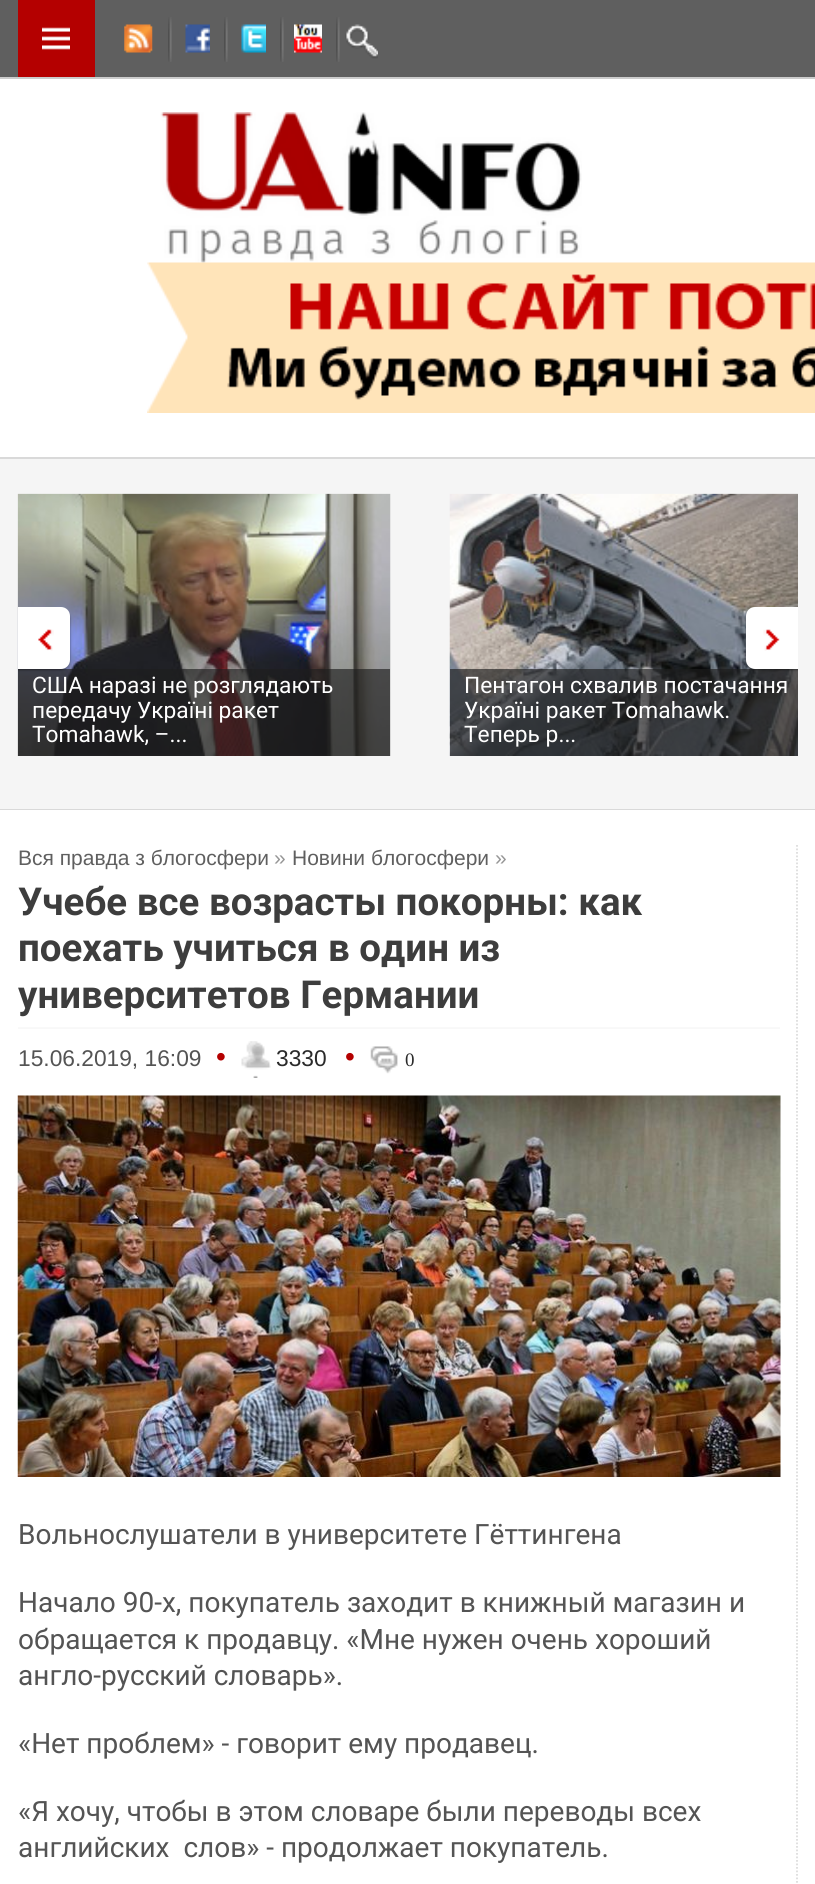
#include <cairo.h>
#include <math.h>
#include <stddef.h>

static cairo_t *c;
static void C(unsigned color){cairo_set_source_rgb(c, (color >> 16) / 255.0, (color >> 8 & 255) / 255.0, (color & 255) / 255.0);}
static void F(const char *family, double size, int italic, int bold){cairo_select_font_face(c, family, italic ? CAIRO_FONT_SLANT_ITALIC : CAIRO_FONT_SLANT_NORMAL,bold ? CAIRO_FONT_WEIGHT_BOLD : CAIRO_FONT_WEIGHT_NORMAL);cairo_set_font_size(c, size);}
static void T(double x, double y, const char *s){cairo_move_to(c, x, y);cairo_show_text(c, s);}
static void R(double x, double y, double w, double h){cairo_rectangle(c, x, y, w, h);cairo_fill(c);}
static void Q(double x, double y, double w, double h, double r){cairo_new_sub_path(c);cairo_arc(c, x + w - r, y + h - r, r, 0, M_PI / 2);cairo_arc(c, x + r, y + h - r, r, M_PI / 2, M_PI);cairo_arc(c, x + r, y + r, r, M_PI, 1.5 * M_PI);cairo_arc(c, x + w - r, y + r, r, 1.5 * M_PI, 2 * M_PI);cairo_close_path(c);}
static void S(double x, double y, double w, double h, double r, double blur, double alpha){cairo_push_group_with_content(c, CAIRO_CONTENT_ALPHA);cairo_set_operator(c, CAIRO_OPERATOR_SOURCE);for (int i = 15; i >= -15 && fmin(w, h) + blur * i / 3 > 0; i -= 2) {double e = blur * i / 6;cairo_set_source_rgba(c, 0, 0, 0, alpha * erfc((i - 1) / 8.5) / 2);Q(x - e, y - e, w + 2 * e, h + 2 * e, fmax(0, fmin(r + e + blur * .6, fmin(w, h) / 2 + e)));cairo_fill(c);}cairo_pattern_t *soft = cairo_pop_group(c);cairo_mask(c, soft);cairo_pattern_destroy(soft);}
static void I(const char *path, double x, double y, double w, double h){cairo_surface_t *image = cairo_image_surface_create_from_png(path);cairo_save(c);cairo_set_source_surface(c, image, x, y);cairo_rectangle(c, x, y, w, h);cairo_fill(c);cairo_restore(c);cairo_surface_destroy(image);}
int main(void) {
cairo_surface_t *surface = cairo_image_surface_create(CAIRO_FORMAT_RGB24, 815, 1884);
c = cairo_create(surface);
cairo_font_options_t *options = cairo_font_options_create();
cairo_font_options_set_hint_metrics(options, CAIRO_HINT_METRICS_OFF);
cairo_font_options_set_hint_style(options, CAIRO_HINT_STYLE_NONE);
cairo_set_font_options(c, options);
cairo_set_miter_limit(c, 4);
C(0xffffff);
cairo_paint(c);
C(0xcccccc);
cairo_new_path(c);
cairo_move_to(c,0,77);
cairo_line_to(c,0,79);
cairo_line_to(c,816,79);
cairo_line_to(c,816,2);
cairo_line_to(c,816,77);
cairo_close_path(c);
cairo_fill(c);
C(0x5f5f5f);
R(0,0,815,77);
C(0xb40000);
R(18,0,77,77);
I("1.png",42,27,28,23);
I("2.png",124,24,29,29);
I("3.png",168,17,4,45);
I("4.png",185,24,25,29);
I("3.png",224,17,4,45);
I("5.png",241,24,25,29);
I("3.png",280,17,4,45);
I("6.png",294,24,28,29);
I("3.png",336,17,4,45);
I("7.png",345,24,33,35);
I("8.png",160,112,422,151);
I("9.png",147,262,668,151);
C(0xf5f5f5);
R(0,459,815,350);
C(0xd9d9d9);
R(0,457,815,2);
R(0,809,815,1);
I("12.png",17,493,374,263);
cairo_set_source_rgba(c,0.118,0.118,0.118,0.65);
R(18,669,372,87);
cairo_save(c);
cairo_rectangle(c,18,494,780,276);
cairo_clip(c);
C(0x000000);
S(0,609,70,61,9,1,.4);
cairo_restore(c);
C(0xffffff);
cairo_new_path(c);
cairo_move_to(c,18,607);
cairo_line_to(c,61,607);
cairo_curve_to(c,66,607,70,611,70,616);
cairo_line_to(c,70,660);
cairo_curve_to(c,70,665,66,669,61,669);
cairo_line_to(c,18,669);
cairo_close_path(c);
cairo_fill(c);
I("10.png",38,629,16,22);
I("13.png",449,493,349,263);
cairo_set_source_rgba(c,0.118,0.118,0.118,0.65);
R(450,669,348,87);
cairo_save(c);
cairo_rectangle(c,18,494,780,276);
cairo_clip(c);
C(0x000000);
S(746,609,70,61,9,1,.4);
cairo_restore(c);
C(0xffffff);
cairo_new_path(c);
cairo_move_to(c,755,607);
cairo_line_to(c,798,607);
cairo_line_to(c,798,669);
cairo_line_to(c,755,669);
cairo_curve_to(c,750,669,746,665,746,660);
cairo_line_to(c,746,616);
cairo_curve_to(c,746,611,750,607,755,607);
cairo_close_path(c);
cairo_fill(c);
I("11.png",763,629,17,22);
F("Roboto",22.75,0,0);
T(32,693,"США наразі не розглядають");
T(32,718,"передачу Україні ракет");
T(32,742,"Tomahawk, –...");
T(464,693,"Пентагон схвалив постачання");
T(464,718,"Україні ракет Tomahawk.");
T(464,742,"Теперь р...");
cairo_new_path(c);
cairo_move_to(c,797,845);
cairo_line_to(c,797,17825.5);
C(0xdddddd);
cairo_set_line_width(c,1.8);
cairo_set_dash(c,(double[]){1.75,1.75},2,0);
cairo_stroke(c);
F("Liberation Sans",21,0,0);
C(0x5f5f5f);
T(18,865,"Вся правда з блогосфери");
C(0x969696);
T(274,865,"»");
C(0x5f5f5f);
T(292,865,"Новини блогосфери");
C(0x969696);
T(495,865,"»");
F("Roboto",38.5,0,1);
C(0x3d3d3d);
T(18,915,"Учебе все возрасты покорны: как");
T(18,961,"поехать учиться в один из");
T(18,1008,"университетов Германии");
I("14.png",18,1027,762,2);
F("Liberation Sans",22.75,0,0);
C(0x545454);
T(18,1066,"15.06.2019, 16:09");
F("Liberation Sans",28,0,0);
C(0xb40000);
T(216,1066,"•");
I("15.png",241,1041,30,37);
F("Liberation Sans",22.75,0,0);
C(0x2a2a2a);
T(276,1066,"3330");
F("Liberation Sans",28,0,0);
C(0xb40000);
T(345,1066,"•");
I("16.png",370,1046,28,28);
F("Liberation Serif",19,0,0);
C(0x2a2a2a);
T(405,1066,"0");
I("17.png",17,1095,764,382);
F("Roboto",28,0,0);
C(0x545454);
T(18,1544,"Вольнослушатели в университете Гёттингена");
T(18,1612,"Начало 90-х, покупатель заходит в книжный магазин и");
T(18,1649,"обращается к продавцу. «Мне нужен очень хороший");
T(18,1685,"англо-русский словарь».");
T(18,1753,"«Нет проблем» - говорит ему продавец.");
T(18,1821,"«Я хочу, чтобы в этом словаре были переводы всех");
T(18,1857,"английских  слов» - продолжает покупатель.");
cairo_surface_write_to_png(surface, "o.png");
cairo_font_options_destroy(options);
cairo_destroy(c);
cairo_surface_destroy(surface);
return 0;
}
